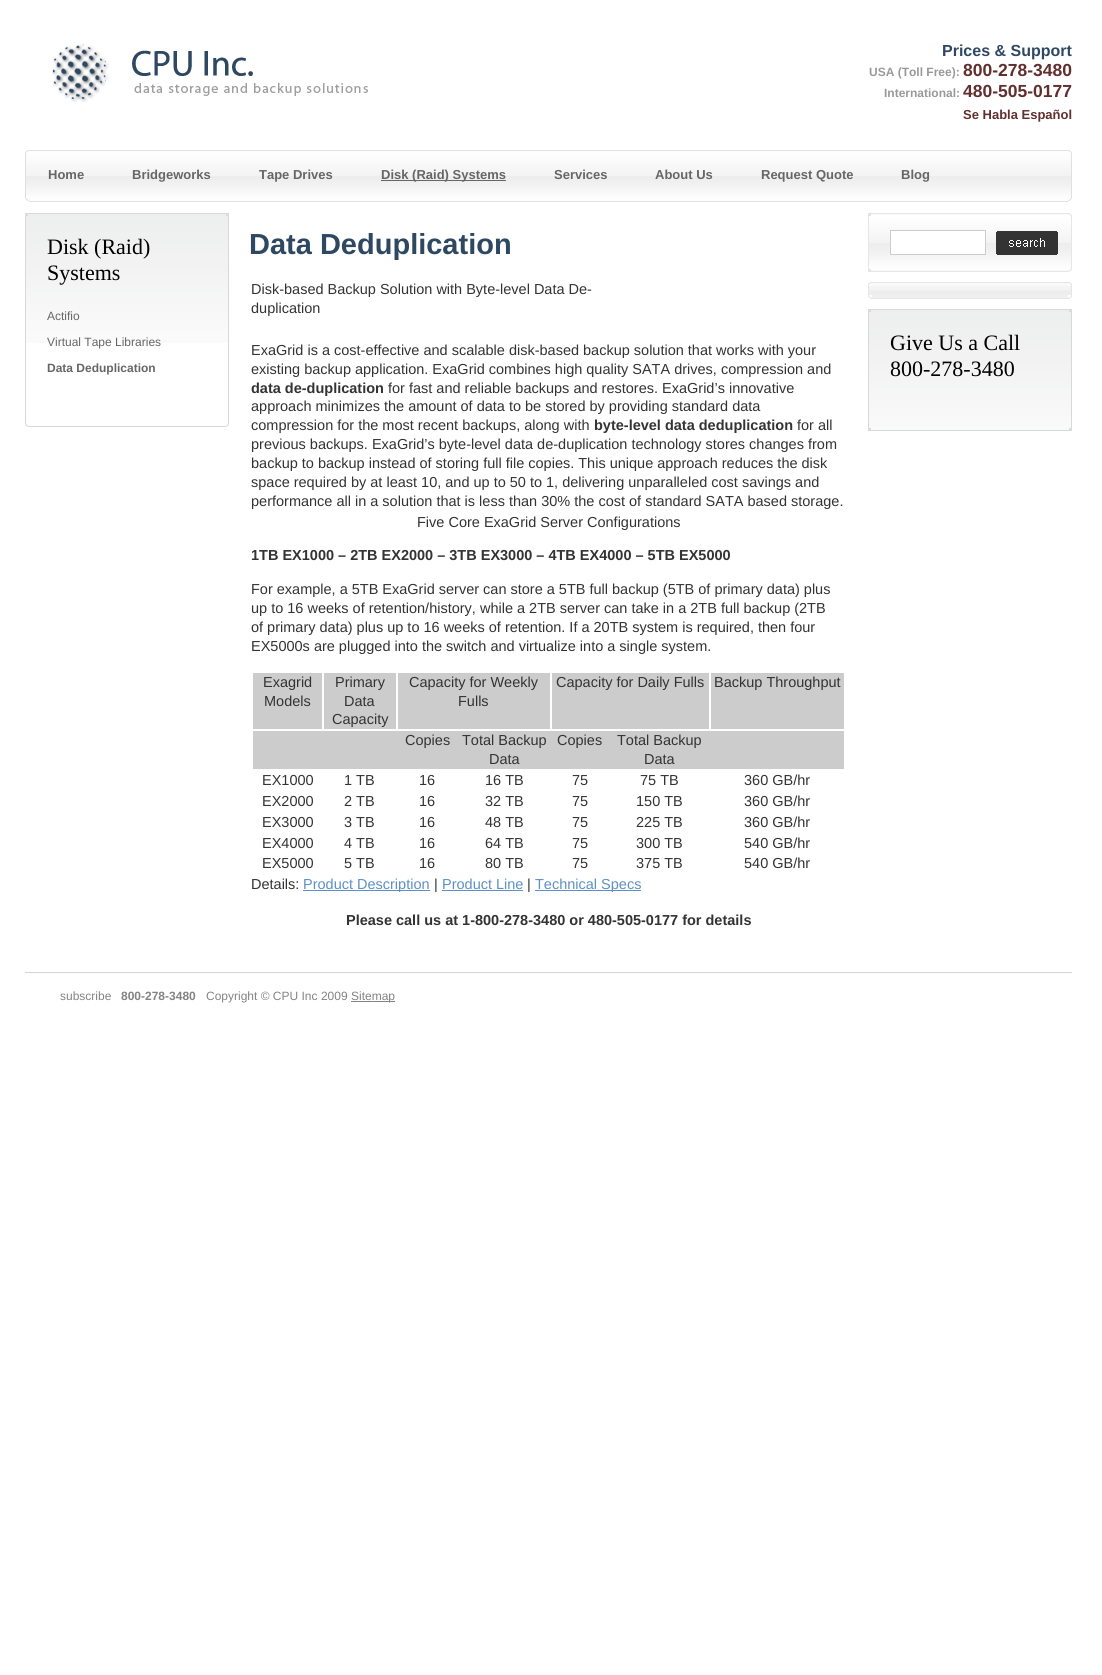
#include <cairo.h>
#include <math.h>
#include <stddef.h>

static cairo_t *c;
static void C(unsigned color){cairo_set_source_rgb(c, (color >> 16) / 255.0, (color >> 8 & 255) / 255.0, (color & 255) / 255.0);}
static void F(const char *family, double size, int italic, int bold){cairo_select_font_face(c, family, italic ? CAIRO_FONT_SLANT_ITALIC : CAIRO_FONT_SLANT_NORMAL,bold ? CAIRO_FONT_WEIGHT_BOLD : CAIRO_FONT_WEIGHT_NORMAL);cairo_set_font_size(c, size);}
static void T(double x, double y, const char *s){cairo_move_to(c, x, y);cairo_show_text(c, s);}
static void R(double x, double y, double w, double h){cairo_rectangle(c, x, y, w, h);cairo_fill(c);}
static void I(const char *path, double x, double y, double w, double h){cairo_surface_t *image = cairo_image_surface_create_from_png(path);cairo_save(c);cairo_set_source_surface(c, image, x, y);cairo_rectangle(c, x, y, w, h);cairo_fill(c);cairo_restore(c);cairo_surface_destroy(image);}
int main(void) {
cairo_surface_t *surface = cairo_image_surface_create(CAIRO_FORMAT_RGB24, 1102, 1675);
c = cairo_create(surface);
cairo_font_options_t *options = cairo_font_options_create();
cairo_font_options_set_hint_metrics(options, CAIRO_HINT_METRICS_OFF);
cairo_font_options_set_hint_style(options, CAIRO_HINT_STYLE_NONE);
cairo_set_font_options(c, options);
cairo_set_miter_limit(c, 4);
C(0xffffff);
cairo_paint(c);
I("1.png",51,44,58,58);
I("2.png",132,50,121,26);
I("3.png",134,83,234,13);
F("Liberation Sans",16,0,1);
C(0x2f4862);
T(942,56,"Prices & Support");
F("Liberation Sans",12,0,1);
C(0x999999);
T(869,76,"USA (Toll Free):");
F("Liberation Sans",17.5,0,1);
C(0x622f2f);
T(963,76,"800-278-3480");
F("Liberation Sans",12,0,1);
C(0x999999);
T(884,97,"International:");
F("Liberation Sans",17.5,0,1);
C(0x622f2f);
T(963,97,"480-505-0177");
F("Liberation Sans",13,0,1);
T(963,119,"Se Habla Español");
I("4.png",29,150,1039,52);
I("5.png",24,150,5,52);
I("6.png",1068,150,5,52);
C(0x666666);
T(48,179,"Home");
T(132,179,"Bridgeworks");
T(259,179,"Tape Drives");
R(381,180,125,1);
T(381,179,"Disk (Raid) Systems");
T(554,179,"Services");
T(655,179,"About Us");
T(761,179,"Request Quote");
T(901,179,"Blog");
I("7.png",26,214,202,129);
C(0xd6d8d9);
R(25,213,1,214);
R(228,213,1,214);
R(26,213,202,1);
R(26,426,202,1);
C(0xd9dbdc);
R(25,213,3,3);
R(226,213,3,3);
I("8.png",25,423,4,4);
I("9.png",225,423,4,4);
F("Liberation Serif",22,0,0);
C(0x000000);
T(47,254,"Disk (Raid)");
T(47,280,"Systems");
F("Liberation Sans",12,0,0);
C(0x666666);
T(47,320,"Actifio");
T(47,346,"Virtual Tape Libraries");
F("Liberation Sans",12,0,1);
T(47,372,"Data Deduplication");
F("Liberation Sans",29,0,1);
C(0x2f4862);
T(249,254,"Data Deduplication");
F("Liberation Sans",14.5,0,0);
C(0x333333);
T(251,294,"Disk-based Backup Solution with Byte-level Data De-");
T(251,313,"duplication");
T(251,355,"ExaGrid is a cost-effective and scalable disk-based backup solution that works with your");
T(251,374,"existing backup application. ExaGrid combines high quality SATA drives, compression and");
F("Liberation Sans",14.5,0,1);
T(251,393,"data de-duplication");
F("Liberation Sans",14.5,0,0);
T(388,393,"for fast and reliable backups and restores. ExaGrid’s innovative");
T(251,411,"approach minimizes the amount of data to be stored by providing standard data");
T(251,430,"compression for the most recent backups, along with");
F("Liberation Sans",14.5,0,1);
T(594,430,"byte-level data deduplication");
F("Liberation Sans",14.5,0,0);
T(797,430,"for all");
T(251,449,"previous backups. ExaGrid’s byte-level data de-duplication technology stores changes from");
T(251,468,"backup to backup instead of storing full file copies. This unique approach reduces the disk");
T(251,487,"space required by at least 10, and up to 50 to 1, delivering unparalleled cost savings and");
T(251,506,"performance all in a solution that is less than 30% the cost of standard SATA based storage.");
T(417,527,"Five Core ExaGrid Server Configurations");
F("Liberation Sans",14.5,0,1);
T(251,560,"1TB EX1000 – 2TB EX2000 – 3TB EX3000 – 4TB EX4000 – 5TB EX5000");
F("Liberation Sans",14.5,0,0);
T(251,594,"For example, a 5TB ExaGrid server can store a 5TB full backup (5TB of primary data) plus");
T(251,613,"up to 16 weeks of retention/history, while a 2TB server can take in a 2TB full backup (2TB");
T(251,632,"of primary data) plus up to 16 weeks of retention. If a 20TB system is required, then four");
T(251,651,"EX5000s are plugged into the switch and virtualize into a single system.");
C(0xcccccc);
R(253,673,69,56);
C(0x333333);
T(263,687,"Exagrid");
T(264,706,"Models");
C(0xcccccc);
R(324,673,72,56);
C(0x333333);
T(335,687,"Primary");
T(344,706,"Data");
T(332,724,"Capacity");
C(0xcccccc);
R(398,673,152,56);
C(0x333333);
T(409,687,"Capacity for Weekly");
T(458,706,"Fulls");
C(0xcccccc);
R(552,673,157,56);
C(0x333333);
T(556,687,"Capacity for Daily Fulls");
C(0xcccccc);
R(711,673,133,56);
C(0x333333);
T(714,687,"Backup Throughput");
C(0xcccccc);
R(253,731,591,38);
C(0x333333);
T(405,745,"Copies");
T(462,745,"Total Backup");
T(489,764,"Data");
T(557,745,"Copies");
T(617,745,"Total Backup");
T(644,764,"Data");
T(262,785,"EX1000");
T(344,785,"1 TB");
T(419,785,"16");
T(485,785,"16 TB");
T(572,785,"75");
T(640,785,"75 TB");
T(744,785,"360 GB/hr");
T(262,806,"EX2000");
T(344,806,"2 TB");
T(419,806,"16");
T(485,806,"32 TB");
T(572,806,"75");
T(636,806,"150 TB");
T(744,806,"360 GB/hr");
T(262,827,"EX3000");
T(344,827,"3 TB");
T(419,827,"16");
T(485,827,"48 TB");
T(572,827,"75");
T(636,827,"225 TB");
T(744,827,"360 GB/hr");
T(262,848,"EX4000");
T(344,848,"4 TB");
T(419,848,"16");
T(485,848,"64 TB");
T(572,848,"75");
T(636,848,"300 TB");
T(744,848,"540 GB/hr");
T(262,868,"EX5000");
T(344,868,"5 TB");
T(419,868,"16");
T(485,868,"80 TB");
T(572,868,"75");
T(636,868,"375 TB");
T(744,868,"540 GB/hr");
T(251,889,"Details:");
C(0x5d90c7);
R(303,890,127,1);
T(303,889,"Product Description");
C(0x333333);
T(434,889,"|");
C(0x5d90c7);
T(442,889,"Product Line");
R(442,890,81,1);
C(0x333333);
T(527,889,"|");
C(0x5d90c7);
R(535,890,106,1);
T(535,889,"Technical Specs");
F("Liberation Sans",14.5,0,1);
C(0x333333);
T(346,925,"Please call us at 1-800-278-3480 or 480-505-0177 for details");
C(0xf9f9f9);
R(871,214,198,57);
I("10.png",869,215,202,55);
C(0xe5e6e6);
R(868,213,1,59);
R(1071,213,1,59);
R(869,213,202,1);
R(869,271,202,1);
C(0xe1e2e2);
R(868,213,3,3);
I("11.png",1069,213,3,4);
C(0xe4e5e5);
R(868,269,3,2);
I("12.png",1069,268,3,4);
C(0xffffff);
cairo_rectangle(c,890.5,230.5,95,24);
cairo_fill_preserve(c);
C(0xcccccc);
cairo_set_line_width(c,1);
cairo_stroke(c);
I("13.png",996,231,62,24);
C(0xf9f9f9);
R(872,283,196,3);
I("14.png",869,286,202,12);
C(0xe5e6e6);
R(868,282,1,17);
R(1071,282,1,17);
R(869,282,202,1);
R(869,298,202,1);
I("15.png",868,282,4,4);
I("16.png",1068,282,4,4);
I("17.png",868,295,4,4);
I("18.png",1068,295,4,4);
I("19.png",869,310,202,120);
C(0xd6d8d9);
R(868,309,1,122);
R(1071,309,1,122);
R(869,309,202,1);
R(869,430,202,1);
C(0xd9dbdc);
R(868,309,3,3);
R(1069,309,3,3);
R(868,428,3,3);
R(1069,428,3,3);
F("Liberation Serif",22,0,0);
C(0x000000);
T(890,350,"Give Us a Call");
T(890,376,"800-278-3480");
C(0xd4d4d4);
R(25,972,1047,1);
F("Liberation Sans",12,0,0);
C(0x838383);
T(60,1000,"subscribe");
F("Liberation Sans",12,0,1);
T(121,1000,"800-278-3480");
F("Liberation Sans",12,0,0);
T(206,1000,"Copyright © CPU Inc 2009");
R(351,1001,44,1);
T(351,1000,"Sitemap");
cairo_surface_write_to_png(surface, "o.png");
cairo_font_options_destroy(options);
cairo_destroy(c);
cairo_surface_destroy(surface);
return 0;
}
